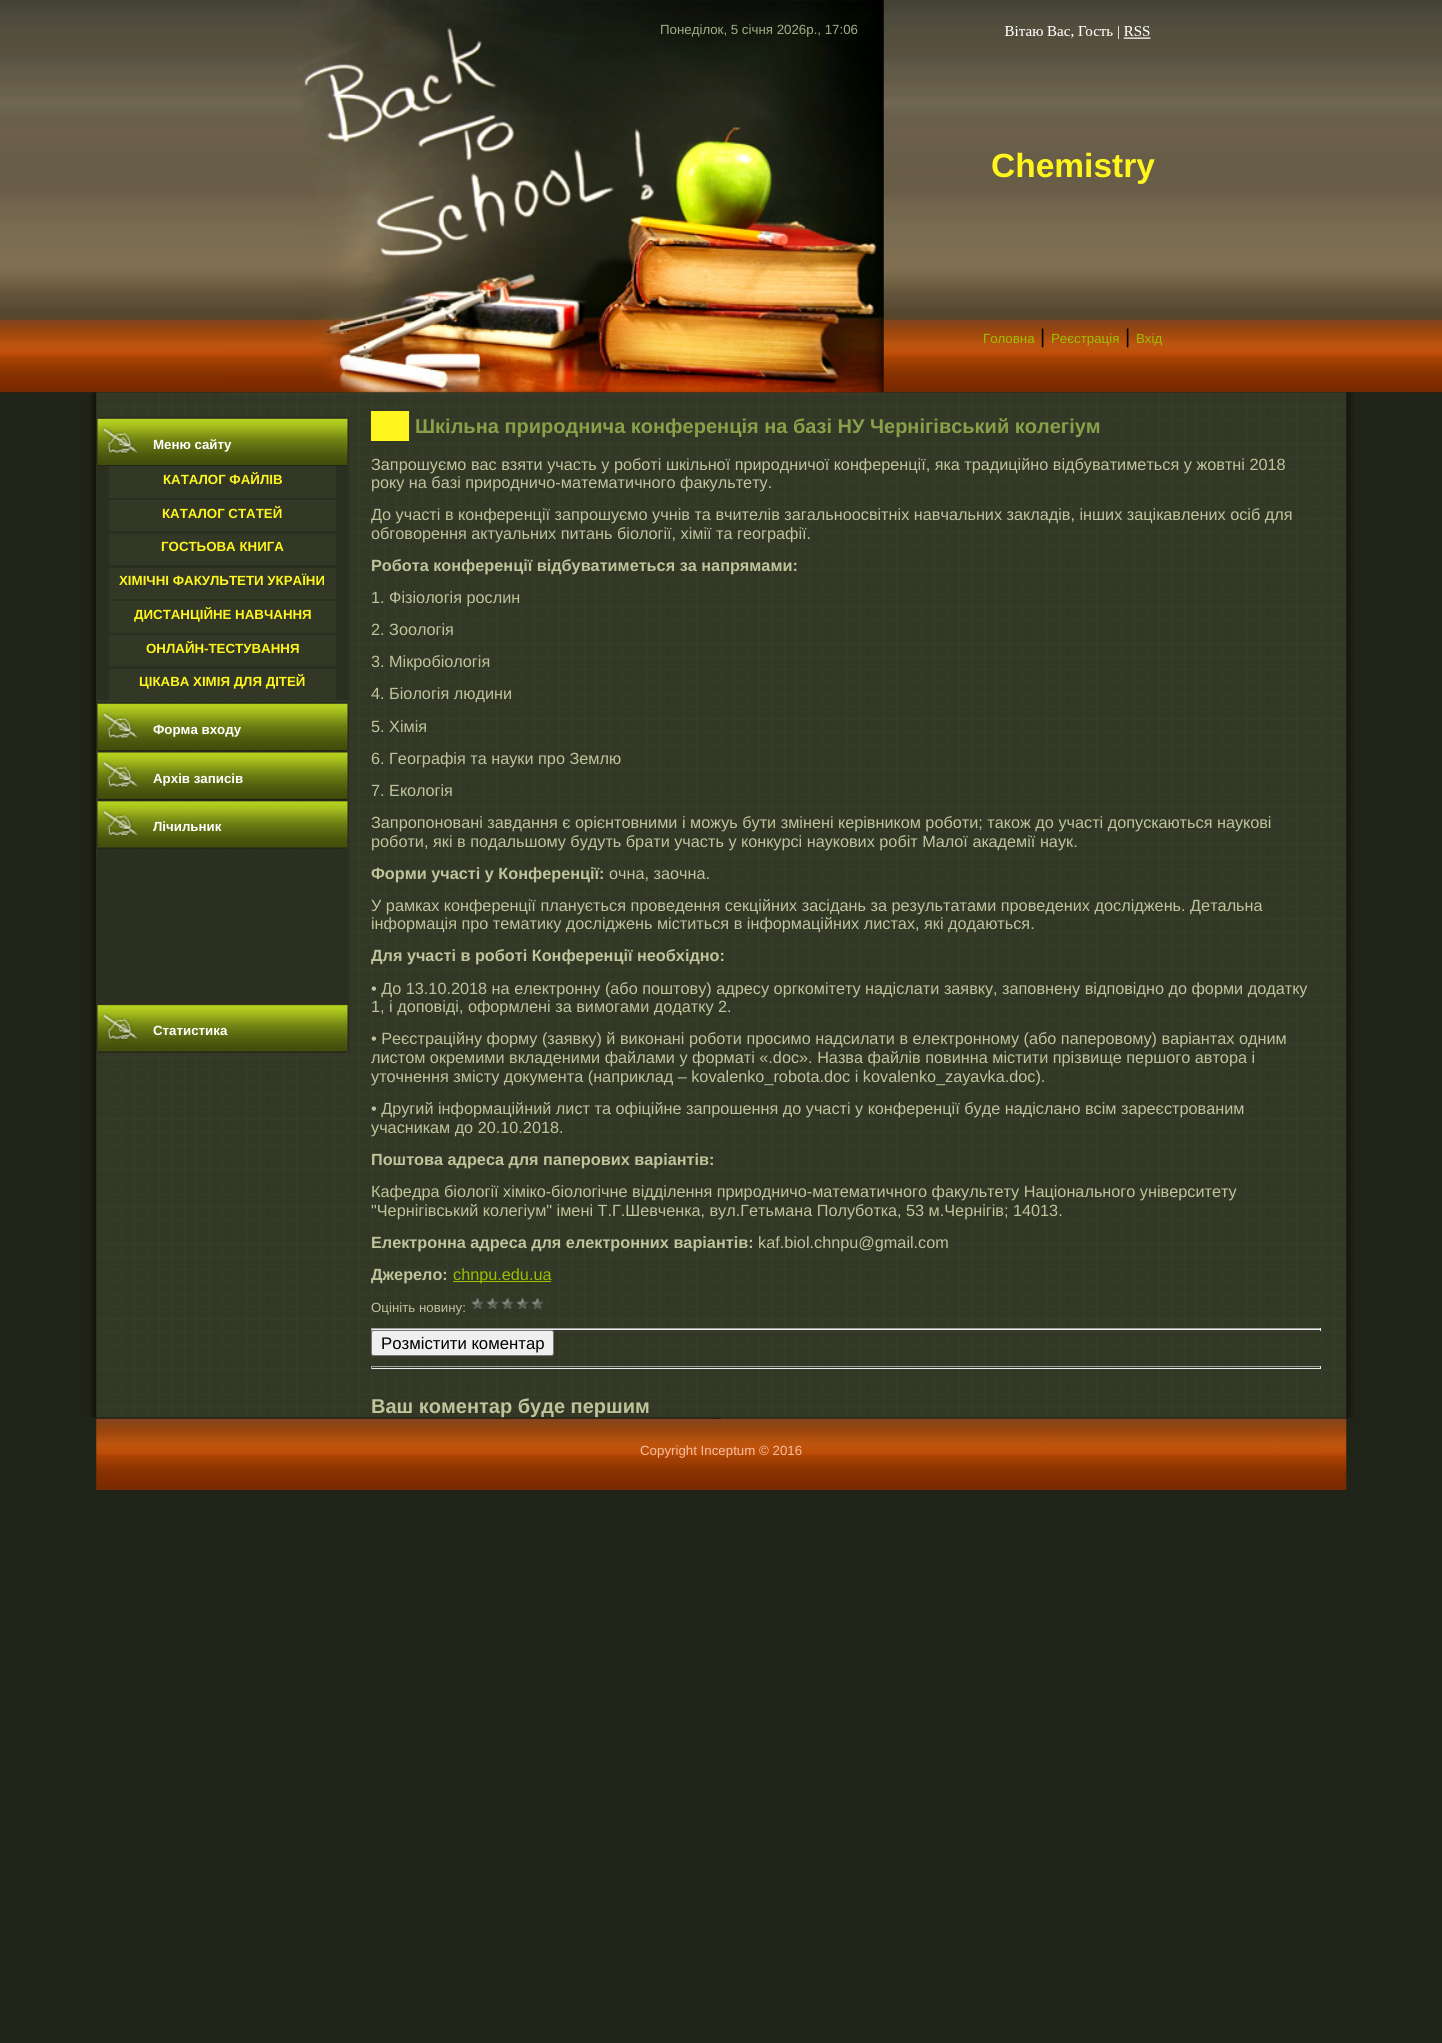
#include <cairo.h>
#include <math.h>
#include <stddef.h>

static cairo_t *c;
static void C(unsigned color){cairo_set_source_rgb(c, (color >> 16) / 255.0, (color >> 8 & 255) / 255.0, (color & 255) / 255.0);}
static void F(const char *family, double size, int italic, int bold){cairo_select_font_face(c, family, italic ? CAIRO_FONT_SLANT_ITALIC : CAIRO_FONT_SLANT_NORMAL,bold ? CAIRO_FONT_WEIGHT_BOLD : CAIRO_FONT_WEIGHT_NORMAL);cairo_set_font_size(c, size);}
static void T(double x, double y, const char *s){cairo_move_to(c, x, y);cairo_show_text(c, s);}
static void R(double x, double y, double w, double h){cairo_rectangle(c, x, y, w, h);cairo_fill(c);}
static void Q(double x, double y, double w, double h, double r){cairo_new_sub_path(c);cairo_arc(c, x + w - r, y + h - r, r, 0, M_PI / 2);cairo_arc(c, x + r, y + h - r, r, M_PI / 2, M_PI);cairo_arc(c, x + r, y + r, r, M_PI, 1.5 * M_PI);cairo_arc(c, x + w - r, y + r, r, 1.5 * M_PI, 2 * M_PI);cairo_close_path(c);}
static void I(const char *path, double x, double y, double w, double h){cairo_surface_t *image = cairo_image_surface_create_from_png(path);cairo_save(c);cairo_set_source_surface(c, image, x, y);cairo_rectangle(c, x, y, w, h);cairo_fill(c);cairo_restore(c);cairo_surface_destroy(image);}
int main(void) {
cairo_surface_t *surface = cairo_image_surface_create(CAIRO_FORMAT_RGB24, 1442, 2043);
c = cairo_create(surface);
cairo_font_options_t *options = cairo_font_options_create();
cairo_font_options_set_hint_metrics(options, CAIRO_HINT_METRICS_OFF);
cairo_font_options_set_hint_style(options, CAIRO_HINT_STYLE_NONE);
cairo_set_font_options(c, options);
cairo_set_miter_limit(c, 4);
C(0x202318);
cairo_paint(c);
I("1.png",0,0,1442,393);
I("2.png",221,392,1000,1);
I("3.png",297,0,587,95);
F("Liberation Sans",13.3,0,0);
C(0x9faf88);
T(660,34,"Понеділок, 5 січня 2026р., 17:06");
I("4.png",300,95,584,230);
I("5.png",1004,26,147,13);
F("Liberation Sans",33.5,0,1);
C(0xfff61e);
T(991,177,"Chemistry");
F("Liberation Sans",13.3,0,0);
C(0x9ac000);
T(983,343,"Головна");
F("Liberation Sans",20,0,0);
C(0x000000);
T(1040,343,"|");
F("Liberation Sans",13.3,0,0);
C(0x9ac000);
T(1051,343,"Реєстрація");
F("Liberation Sans",20,0,0);
C(0x000000);
T(1125,343,"|");
F("Liberation Sans",13.3,0,0);
C(0x9ac000);
T(1136,343,"Вхід");
I("6.png",221,325,663,68);
I("18.png",96,1417,1251,73);
I("7.png",34,392,1375,1026);
I("8.png",96,417,253,49);
F("Liberation Sans",13.3,0,1);
C(0xffffff);
T(153,449,"Меню сайту");
C(0x2b2f20);
R(97,466,252,234);
C(0x323726);
R(109,466,227,32);
C(0xfff61e);
T(163,484,"КАТАЛОГ ФАЙЛІВ");
C(0x323726);
R(109,500,227,31);
C(0xfff61e);
T(162,518,"КАТАЛОГ СТАТЕЙ");
C(0x323726);
R(109,534,227,31);
C(0xfff61e);
T(161,551,"ГОСТЬОВА КНИГА");
C(0x323726);
R(109,568,227,31);
C(0xfff61e);
T(119,585,"ХІМІЧНІ ФАКУЛЬТЕТИ УКРАЇНИ");
C(0x323726);
R(109,601,227,32);
C(0xfff61e);
T(134,619,"ДИСТАНЦІЙНЕ НАВЧАННЯ");
C(0x323726);
R(109,635,227,31);
C(0xfff61e);
T(146,653,"ОНЛАЙН-ТЕСТУВАННЯ");
C(0x323726);
R(109,669,227,31);
C(0xfff61e);
T(139,686,"ЦІКАВА ХІМІЯ ДЛЯ ДІТЕЙ");
I("9.png",96,702,253,50);
C(0xffffff);
T(153,734,"Форма входу");
I("10.png",96,751,253,49);
T(153,783,"Архів записів");
I("11.png",96,800,253,49);
T(153,831,"Лічильник");
C(0x2b2f20);
R(97,849,252,155);
I("12.png",96,1004,253,49);
C(0xffffff);
T(153,1035,"Статистика");
C(0xfff61e);
R(371,411,38,30);
F("Liberation Sans",20,0,1);
C(0x87a149);
T(415,433,"Шкільна природнича конференція на базі НУ Чернігівський колегіум");
F("Liberation Sans",16.25,0,0);
C(0xbec59a);
T(371,470,"Запрошуємо вас взяти участь у роботі шкільної природничої конференції, яка традиційно відбуватиметься у жовтні 2018");
T(371,488,"року на базі природничо-математичного факультету.");
T(371,520,"До участі в конференції запрошуємо учнів та вчителів загальноосвітніх навчальних закладів, інших зацікавлених осіб для");
T(371,539,"обговорення актуальних питань біології, хімії та географії.");
F("Liberation Sans",16.25,0,1);
T(371,571,"Робота конференції відбуватиметься за напрямами:");
F("Liberation Sans",16.25,0,0);
T(371,603,"1. Фізіологія рослин");
T(371,635,"2. Зоологія");
T(371,667,"3. Мікробіологія");
T(371,699,"4. Біологія людини");
T(371,732,"5. Хімія");
T(371,764,"6. Географія та науки про Землю");
T(371,796,"7. Екологія");
T(371,828,"Запропоновані завдання є орієнтовними і можуь бути змінені керівником роботи; також до участі допускаються наукові");
T(371,847,"роботи, які в подальшому будуть брати участь у конкурсі наукових робіт Малої академії наук.");
F("Liberation Sans",16.25,0,1);
T(371,879,"Форми участі у Конференції:");
F("Liberation Sans",16.25,0,0);
T(609,879,"очна, заочна.");
T(371,911,"У рамках конференції планується проведення секційних засідань за результатами проведених досліджень. Детальна");
T(371,929,"інформація про тематику досліджень міститься в інформаційних листах, які додаються.");
F("Liberation Sans",16.25,0,1);
T(371,961,"Для участі в роботі Конференції необхідно:");
F("Liberation Sans",16.25,0,0);
T(371,994,"• До 13.10.2018 на електронну (або поштову) адресу оргкомітету надіслати заявку, заповнену відповідно до форми додатку");
T(371,1012,"1, і доповіді, оформлені за вимогами додатку 2.");
T(371,1044,"• Реєстраційну форму (заявку) й виконані роботи просимо надсилати в електронному (або паперовому) варіантах одним");
T(371,1063,"листом окремими вкладеними файлами у форматі «.doc». Назва файлів повинна містити прізвище першого автора і");
T(371,1082,"уточнення змісту документа (наприклад – kovalenko_robota.doc i kovalenko_zayavka.doc).");
T(371,1114,"• Другий інформаційний лист та офіційне запрошення до участі у конференції буде надіслано всім зареєстрованим");
T(371,1133,"учасникам до 20.10.2018.");
F("Liberation Sans",16.25,0,1);
T(371,1165,"Поштова адреса для паперових варіантів:");
F("Liberation Sans",16.25,0,0);
T(371,1197,"Кафедра біології хіміко-біологічне відділення природничо-математичного факультету Національного університету");
T(371,1216,"\"Чернігівський колегіум\" імені Т.Г.Шевченка, вул.Гетьмана Полуботка, 53 м.Чернігів; 14013.");
F("Liberation Sans",16.25,0,1);
T(371,1248,"Електронна адреса для електронних варіантів:");
F("Liberation Sans",16.25,0,0);
T(758,1248,"kaf.biol.chnpu@gmail.com");
F("Liberation Sans",16.25,0,1);
T(371,1280,"Джерело:");
C(0x9ac000);
R(453,1281,98,1);
F("Liberation Sans",16.25,0,0);
T(453,1280,"chnpu.edu.ua");
F("Liberation Sans",13.3,0,0);
C(0xbec59a);
T(371,1312,"Оцініть новину:");
I("13.png",471,1297,13,13);
I("14.png",486,1297,13,13);
I("15.png",501,1297,13,13);
I("16.png",516,1297,13,13);
I("17.png",531,1297,13,13);
C(0x9f9f9f);
R(371,1328,950,1);
C(0xeeeeee);
R(1320,1328,1,3);
R(371,1329,950,1);
C(0x9f9f9f);
R(371,1328,1,3);
C(0xefefef);
Q(371.5,1330.5,182,25,2);
cairo_fill_preserve(c);
C(0x767676);
cairo_set_line_width(c,1);
cairo_stroke(c);
F("Liberation Sans",16.75,0,0);
C(0x000000);
T(381,1349,"Розмістити коментар");
C(0x9f9f9f);
R(371,1366,950,1);
C(0xeeeeee);
R(1320,1366,1,3);
R(371,1368,950,1);
C(0x9f9f9f);
R(371,1366,1,3);
F("Liberation Sans",20,0,1);
C(0xbec59a);
T(371,1413,"Ваш коментар буде першим");
F("Liberation Sans",13.3,0,0);
C(0xf6bf9d);
T(640,1455,"Copyright Inceptum © 2016");
cairo_surface_write_to_png(surface, "o.png");
cairo_font_options_destroy(options);
cairo_destroy(c);
cairo_surface_destroy(surface);
return 0;
}
